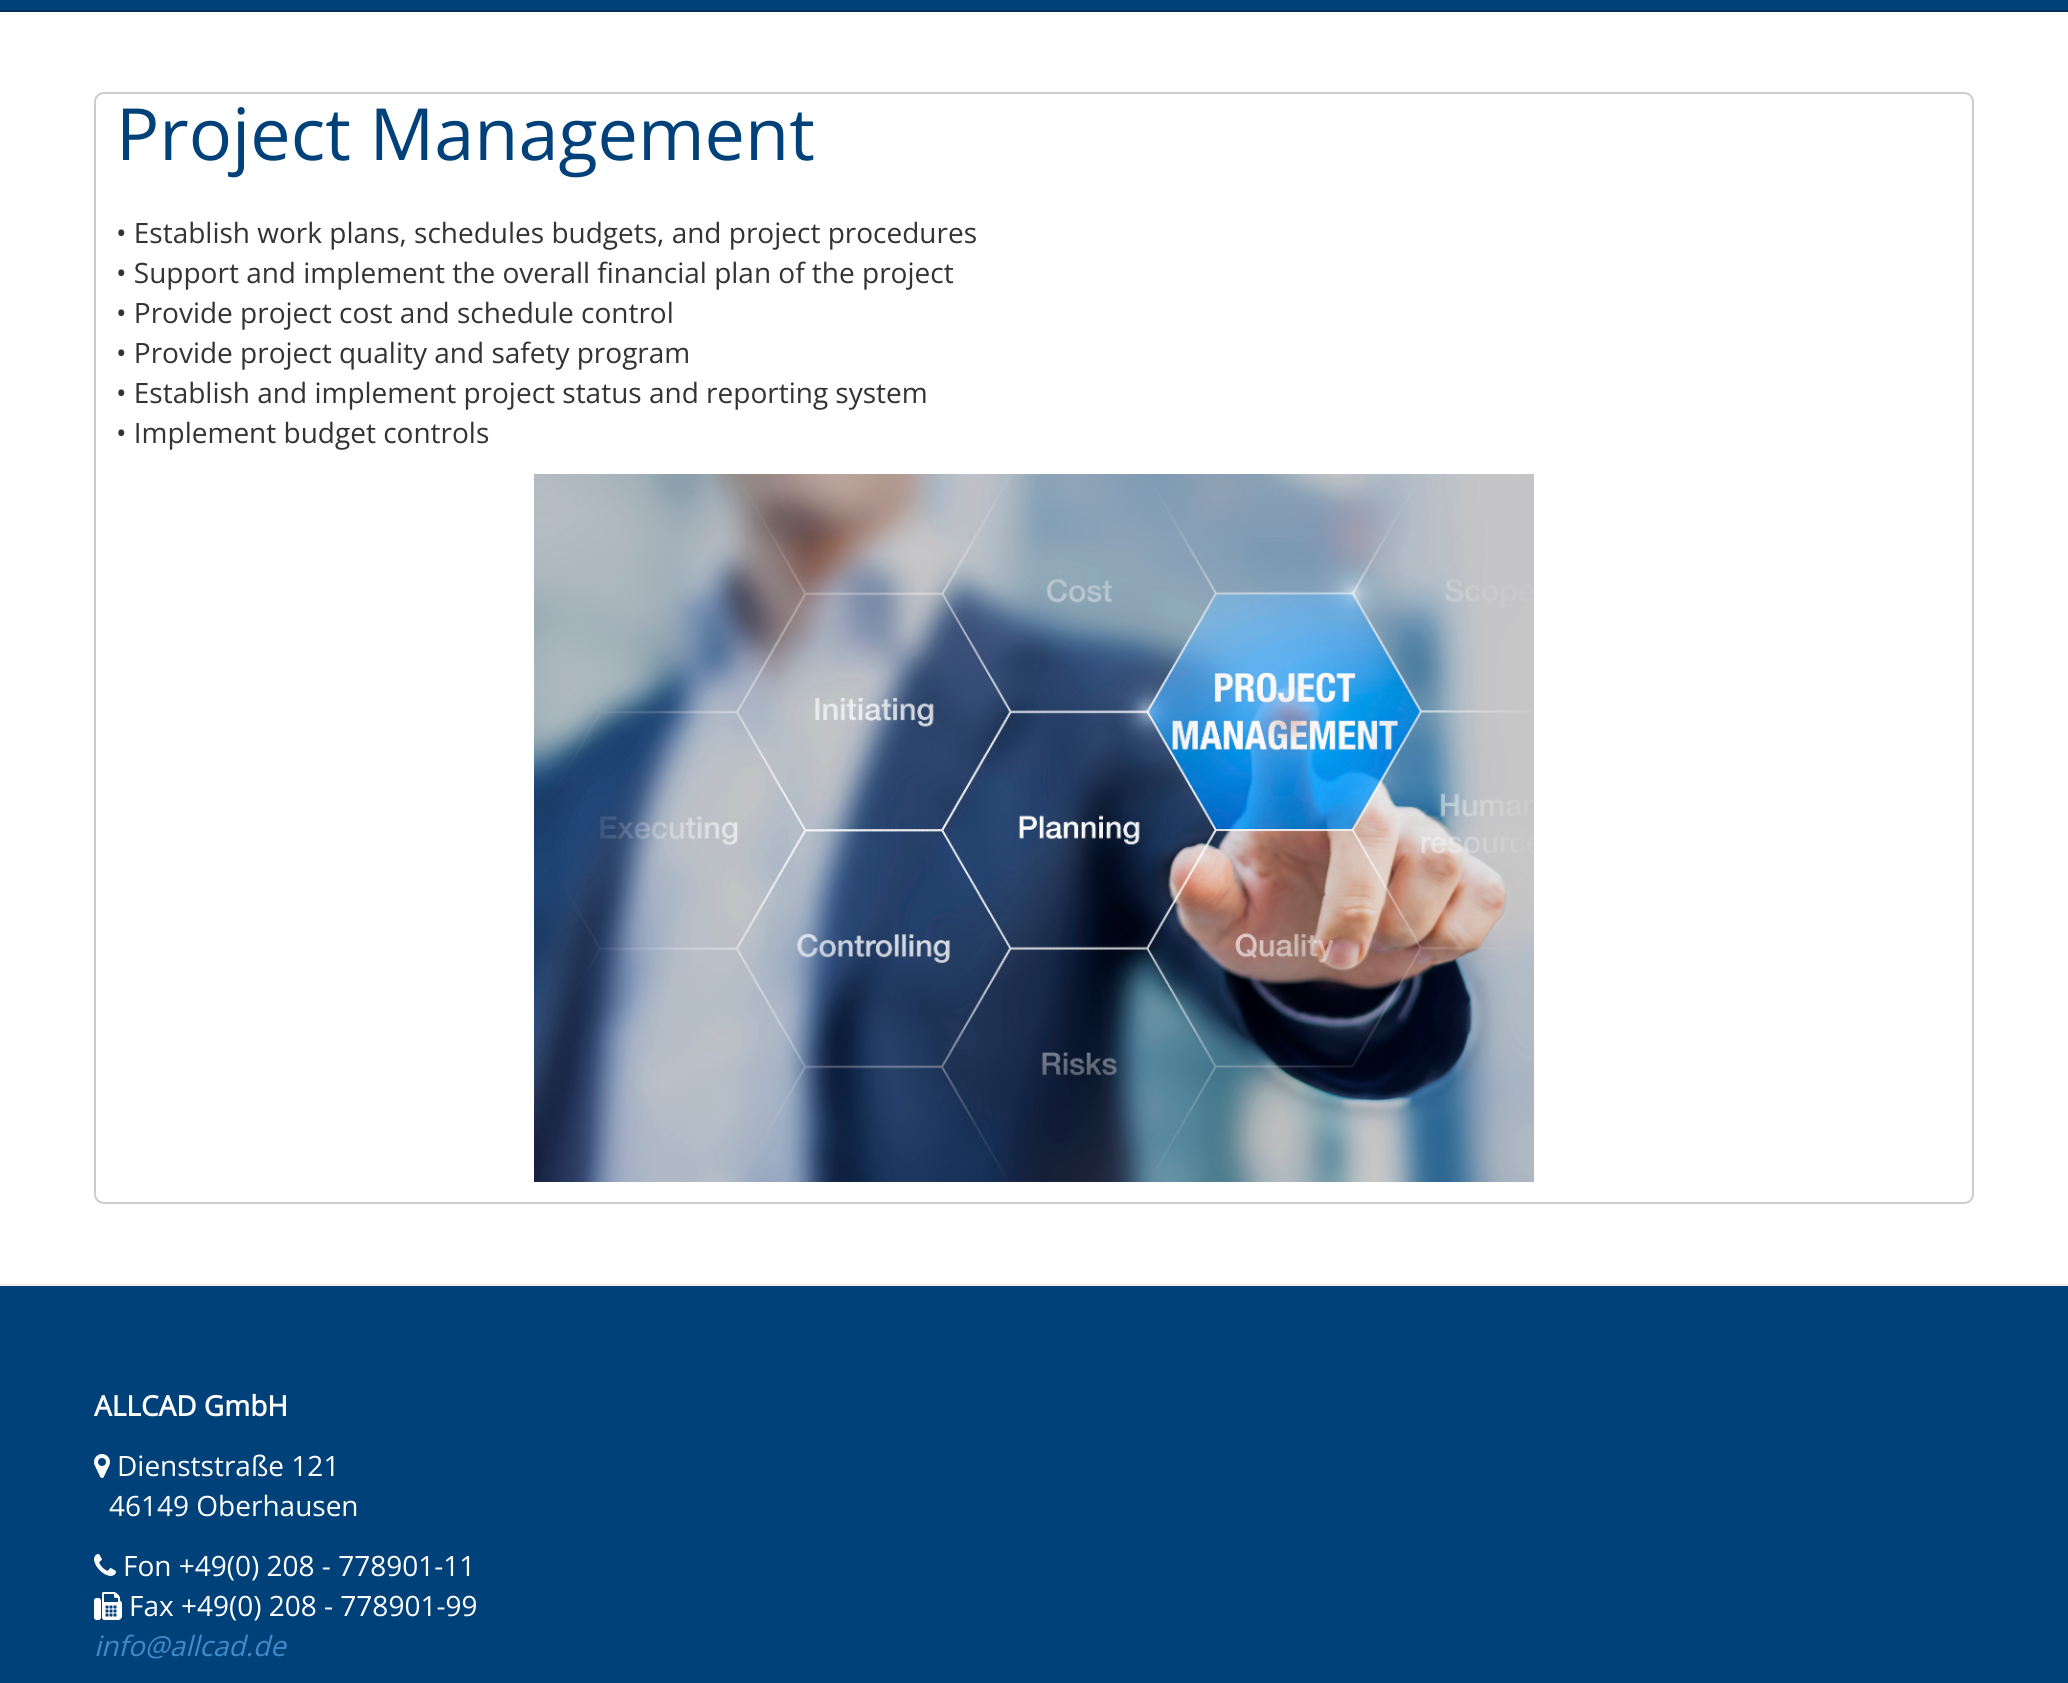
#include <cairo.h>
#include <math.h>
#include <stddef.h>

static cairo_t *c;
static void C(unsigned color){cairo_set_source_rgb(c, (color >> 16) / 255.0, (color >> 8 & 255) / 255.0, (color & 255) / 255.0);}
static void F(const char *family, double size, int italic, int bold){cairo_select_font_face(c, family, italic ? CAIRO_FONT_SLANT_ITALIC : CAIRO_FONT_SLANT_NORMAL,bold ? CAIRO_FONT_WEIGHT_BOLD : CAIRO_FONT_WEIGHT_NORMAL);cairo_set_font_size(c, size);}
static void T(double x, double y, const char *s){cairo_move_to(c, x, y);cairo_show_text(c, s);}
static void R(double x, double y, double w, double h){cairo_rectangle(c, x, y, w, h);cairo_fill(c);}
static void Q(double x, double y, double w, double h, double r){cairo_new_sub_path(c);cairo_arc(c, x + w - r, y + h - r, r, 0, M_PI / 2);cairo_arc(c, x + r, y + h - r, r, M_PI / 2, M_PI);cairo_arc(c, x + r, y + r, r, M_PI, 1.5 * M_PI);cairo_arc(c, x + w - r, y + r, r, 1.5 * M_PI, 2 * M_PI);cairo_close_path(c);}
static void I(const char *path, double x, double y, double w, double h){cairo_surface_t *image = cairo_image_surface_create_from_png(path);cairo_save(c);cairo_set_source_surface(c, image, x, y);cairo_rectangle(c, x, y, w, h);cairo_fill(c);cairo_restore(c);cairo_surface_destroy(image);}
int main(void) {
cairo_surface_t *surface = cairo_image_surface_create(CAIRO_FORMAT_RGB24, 2068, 1683);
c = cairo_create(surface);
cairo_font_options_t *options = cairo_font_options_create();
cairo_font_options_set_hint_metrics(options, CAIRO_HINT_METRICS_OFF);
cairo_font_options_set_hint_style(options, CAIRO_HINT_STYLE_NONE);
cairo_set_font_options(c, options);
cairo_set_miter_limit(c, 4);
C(0xffffff);
cairo_paint(c);
C(0x004179);
R(0,0,2068,10);
C(0x002f58);
R(0,10,2068,2);
Q(95,93,1878,1110,9);
C(0xcccccc);
cairo_stroke(c);
F("Open Sans",72,0,0);
C(0x004179);
T(116,160,"Project Management");
F("Open Sans",28,0,0);
C(0x333333);
T(116,243,"• Establish work plans, schedules budgets, and project procedures");
T(116,283,"• Support and implement the overall financial plan of the project");
T(116,323,"• Provide project cost and schedule control");
T(116,363,"• Provide project quality and safety program");
T(116,403,"• Establish and implement project status and reporting system");
T(116,443,"• Implement budget controls");
I("1.png",534,474,1000,708);
C(0x004179);
R(0,1286,2068,397);
C(0xeeeeee);
R(0,1284,2068,2);
F("Open Sans",28,0,1);
C(0xffffff);
T(94,1416,"ALLCAD GmbH");
I("2.png",94,1454,16,24);
F("Open Sans",28,0,0);
T(117,1476,"Dienststraße 121");
T(109,1516,"46149 Oberhausen");
I("3.png",94,1554,22,22);
T(123,1576,"Fon +49(0) 208 - 778901-11");
I("4.png",94,1592,28,28);
T(129,1616,"Fax +49(0) 208 - 778901-99");
F("Open Sans",28,1,0);
C(0x428bca);
T(94,1656,"info@allcad.de");
cairo_surface_write_to_png(surface, "o.png");
cairo_font_options_destroy(options);
cairo_destroy(c);
cairo_surface_destroy(surface);
return 0;
}
